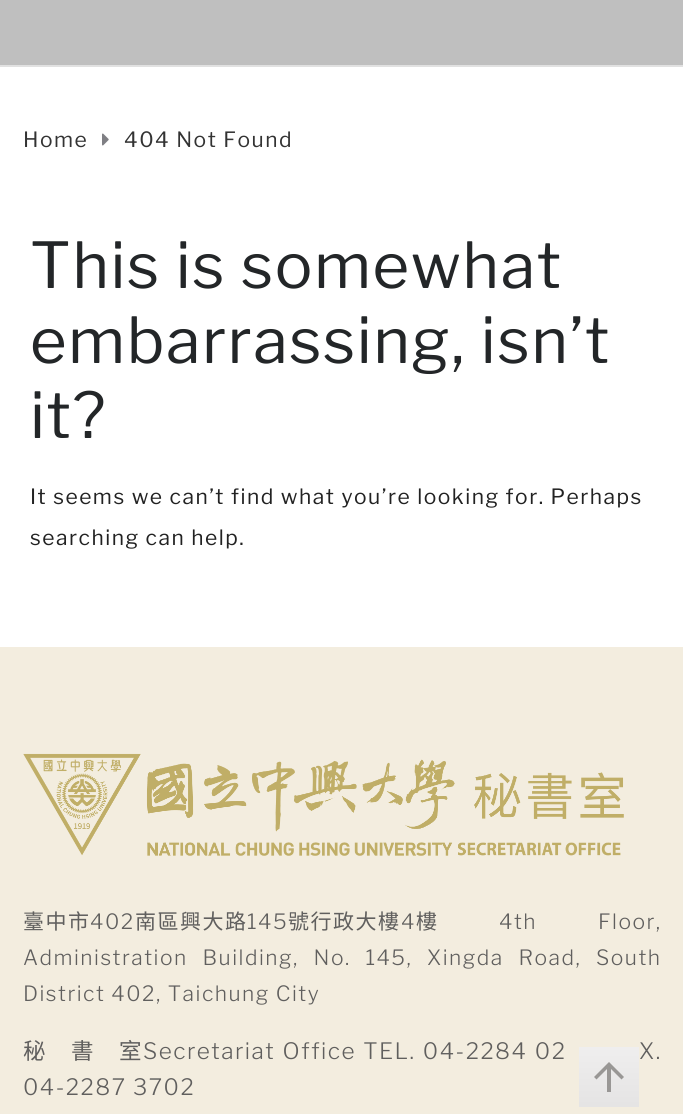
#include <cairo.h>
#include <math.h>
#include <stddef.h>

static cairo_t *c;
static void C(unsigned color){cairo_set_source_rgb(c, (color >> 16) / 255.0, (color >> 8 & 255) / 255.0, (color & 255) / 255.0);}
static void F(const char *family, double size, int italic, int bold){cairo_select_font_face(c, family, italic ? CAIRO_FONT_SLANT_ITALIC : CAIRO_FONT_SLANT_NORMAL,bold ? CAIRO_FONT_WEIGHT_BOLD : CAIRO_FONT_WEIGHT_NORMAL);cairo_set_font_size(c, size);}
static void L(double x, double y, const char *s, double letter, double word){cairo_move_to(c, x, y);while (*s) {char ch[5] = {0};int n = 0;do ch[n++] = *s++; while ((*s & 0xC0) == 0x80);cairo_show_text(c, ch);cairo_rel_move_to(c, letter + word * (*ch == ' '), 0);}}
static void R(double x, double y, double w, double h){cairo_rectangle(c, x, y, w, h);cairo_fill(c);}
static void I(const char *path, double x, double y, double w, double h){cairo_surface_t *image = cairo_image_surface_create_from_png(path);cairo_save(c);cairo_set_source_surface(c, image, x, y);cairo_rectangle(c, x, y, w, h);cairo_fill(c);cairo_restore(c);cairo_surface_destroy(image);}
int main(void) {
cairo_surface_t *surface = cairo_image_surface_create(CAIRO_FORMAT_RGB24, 683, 1114);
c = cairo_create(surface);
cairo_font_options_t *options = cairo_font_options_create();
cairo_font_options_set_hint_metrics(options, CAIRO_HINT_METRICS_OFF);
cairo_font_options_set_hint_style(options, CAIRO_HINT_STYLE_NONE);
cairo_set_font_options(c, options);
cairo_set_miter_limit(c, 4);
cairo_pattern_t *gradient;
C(0xffffff);
cairo_paint(c);
C(0xbfbfbf);
R(0,0,683,65);
C(0xe1e1e1);
R(0,65,683,2);
F("Libre Franklin",21,0,0);
C(0x333333);
L(23,147,"Home",1.5,0);
I("1.png",102,133,7,13);
L(124,147,"404 Not Found",1.5,0);
F("Libre Franklin",63,0,0);
C(0x232628);
L(30,288,"This is somewhat",1.5,0);
L(30,363,"embarrassing, isn’t",1.5,0);
L(30,438,"it?",1.5,0);
F("Libre Franklin",21,0,0);
C(0x222222);
L(30,504,"It seems we can’t find what you’re looking for. Perhaps",1.5,0);
L(30,545,"searching can help.",1.5,0);
C(0xf3eddf);
R(0,647,683,467);
I("2.png",23,753,601,103);
F("Noto Sans CJK TC",21,0,0);
C(0x605f5e);
L(23,929,"臺中市",1.5,0);
F("Libre Franklin Light",21,0,0);
L(90,929,"402",1.5,0);
F("Noto Sans CJK TC",21,0,0);
L(135,929,"南區興大路",1.5,0);
F("Libre Franklin Light",21,0,0);
L(247,929,"145",1.5,0);
F("Noto Sans CJK TC",21,0,0);
L(288,929,"號行政大樓",1.5,0);
F("Libre Franklin Light",21,0,0);
L(401,929,"4",1.5,0);
F("Noto Sans CJK TC",21,0,0);
L(416,929,"樓",1.5,0);
F("Libre Franklin Light",21,0,0);
L(499,929,"4th Floor,",1.5,55);
L(23,965,"Administration Building, No. 145, Xingda Road, South",1.5,8.75);
L(23,1001,"District 402, Taichung City",1.5,0);
F("Noto Sans CJK TC",22.5,0,0);
L(23,1059,"秘　書　室",1.5,0);
F("Libre Franklin Light",22.5,0,0);
L(143,1059,"Secretariat Office TEL. 04-2284 02",1.5,1);
L(639,1059,"X.",1.5,1);
L(23,1095,"04-2287 3702",1.5,0);
cairo_set_source_rgba(c,1,1,1,0.8);
R(579,1047,60,60);
gradient = cairo_pattern_create_linear(609,1047,609,1107);
cairo_pattern_add_color_stop_rgba(gradient,0,0.922,0.922,0.922,.8);
cairo_pattern_add_color_stop_rgba(gradient,1,0.871,0.871,0.871,.8);
cairo_set_source(c,gradient);
cairo_pattern_destroy(gradient);
R(579,1047,60,60);
C(0x999795);
cairo_new_path(c);
cairo_move_to(c,594,1077);
cairo_line_to(c,596.5,1079.5);
cairo_line_to(c,607,1069);
cairo_line_to(c,607,1092);
cairo_line_to(c,611,1092);
cairo_line_to(c,611,1069);
cairo_line_to(c,621.5,1079.5);
cairo_line_to(c,624,1077);
cairo_line_to(c,609,1062);
cairo_close_path(c);
cairo_fill(c);
cairo_surface_write_to_png(surface, "o.png");
cairo_font_options_destroy(options);
cairo_destroy(c);
cairo_surface_destroy(surface);
return 0;
}
